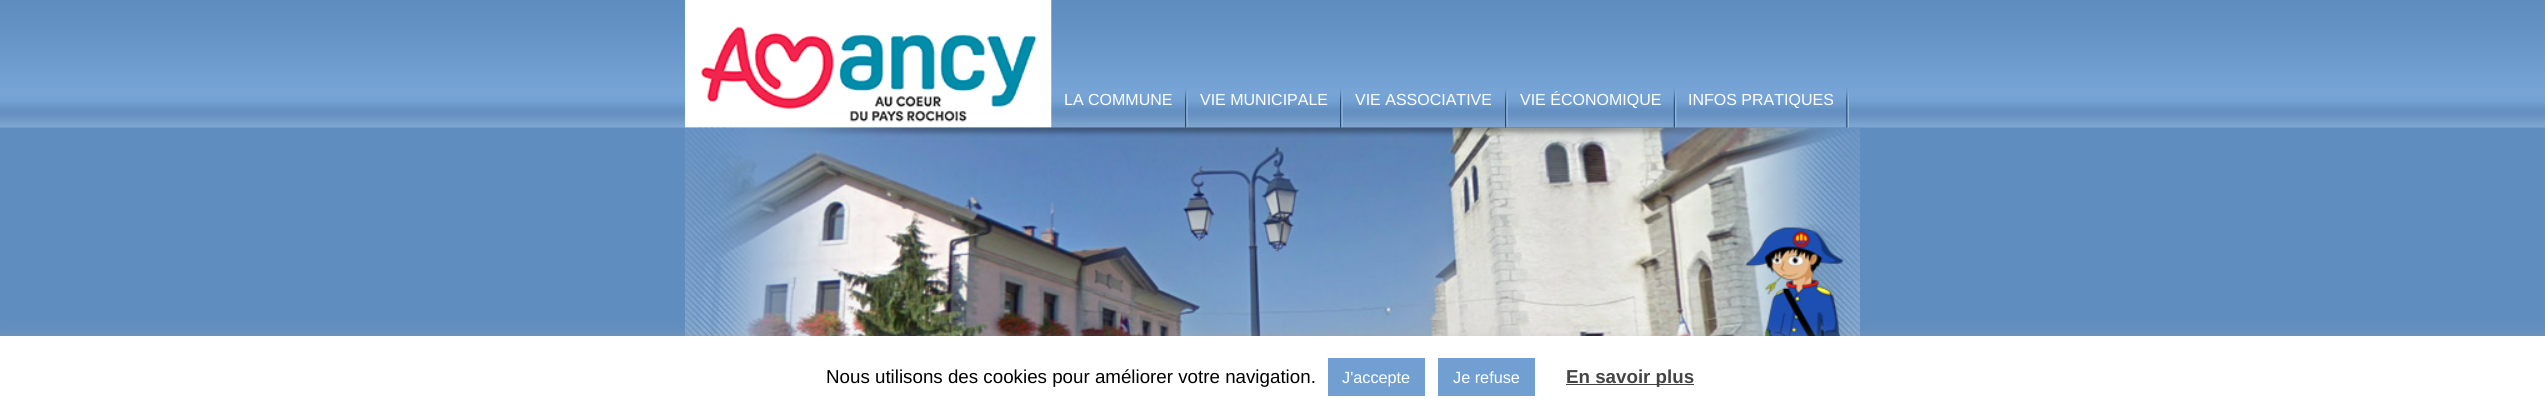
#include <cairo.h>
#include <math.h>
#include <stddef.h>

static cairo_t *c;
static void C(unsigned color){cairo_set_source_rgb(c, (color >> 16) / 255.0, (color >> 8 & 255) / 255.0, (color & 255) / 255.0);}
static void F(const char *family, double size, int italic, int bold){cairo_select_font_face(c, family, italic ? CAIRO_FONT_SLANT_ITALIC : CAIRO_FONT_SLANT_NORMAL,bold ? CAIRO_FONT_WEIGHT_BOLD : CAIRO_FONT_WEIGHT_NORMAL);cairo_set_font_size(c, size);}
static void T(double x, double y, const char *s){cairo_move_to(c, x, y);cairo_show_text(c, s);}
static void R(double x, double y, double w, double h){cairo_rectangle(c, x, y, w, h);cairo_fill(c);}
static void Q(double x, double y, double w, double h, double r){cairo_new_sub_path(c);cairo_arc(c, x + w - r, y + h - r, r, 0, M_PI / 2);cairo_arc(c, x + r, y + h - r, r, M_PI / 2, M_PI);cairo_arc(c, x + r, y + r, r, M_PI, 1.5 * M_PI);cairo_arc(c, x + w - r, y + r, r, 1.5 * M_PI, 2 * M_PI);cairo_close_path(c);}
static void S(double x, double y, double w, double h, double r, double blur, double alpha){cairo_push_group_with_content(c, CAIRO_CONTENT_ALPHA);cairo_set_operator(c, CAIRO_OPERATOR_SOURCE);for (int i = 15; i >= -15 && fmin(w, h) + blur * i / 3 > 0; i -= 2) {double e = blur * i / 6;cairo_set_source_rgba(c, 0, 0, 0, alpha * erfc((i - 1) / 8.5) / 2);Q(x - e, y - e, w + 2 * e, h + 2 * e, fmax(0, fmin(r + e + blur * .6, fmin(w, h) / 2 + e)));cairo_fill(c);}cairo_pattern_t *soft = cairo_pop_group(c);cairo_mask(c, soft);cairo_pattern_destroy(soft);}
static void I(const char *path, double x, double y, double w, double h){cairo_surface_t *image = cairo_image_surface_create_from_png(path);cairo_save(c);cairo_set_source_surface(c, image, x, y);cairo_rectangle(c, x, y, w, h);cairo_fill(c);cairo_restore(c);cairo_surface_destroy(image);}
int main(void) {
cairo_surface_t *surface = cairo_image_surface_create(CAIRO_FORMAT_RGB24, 2545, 417);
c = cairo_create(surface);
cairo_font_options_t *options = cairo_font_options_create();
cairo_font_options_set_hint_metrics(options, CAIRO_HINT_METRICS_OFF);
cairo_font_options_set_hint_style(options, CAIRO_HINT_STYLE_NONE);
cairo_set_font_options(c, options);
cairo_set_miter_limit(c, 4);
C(0xffffff);
cairo_paint(c);
I("1.png",0,0,2545,336);
I("2.png",685,0,367,128);
I("9.png",685,127,1175,209);
I("3.png",1185,88,3,40);
F("Liberation Sans",16,0,0);
C(0xffffff);
T(1064,105,"LA COMMUNE");
I("4.png",1340,88,3,40);
T(1200,105,"VIE MUNICIPALE");
I("5.png",1505,88,3,40);
cairo_set_source_rgba(c,0.427,0.588,0.745,0.25);
R(1453,127,52,1);
C(0xffffff);
T(1355,105,"VIE ASSOCIATIVE");
I("6.png",1673,88,4,40);
I("7.png",1507,127,155,1);
T(1520,105,"VIE ÉCONOMIQUE");
I("8.png",1846,88,3,40);
T(1688,105,"INFOS PRATIQUES");
I("10.png",685,127,1175,209);
C(0xacabab);
S(0,335,2545,81,0,6,.3);
C(0xffffff);
R(0,336,2545,81);
F("Liberation Sans",18.75,0,0);
C(0x000000);
T(826,383,"Nous utilisons des cookies pour améliorer votre navigation.");
C(0x729fd2);
R(1328,358,97,38);
F("Liberation Sans",16.25,0,0);
C(0xffffff);
T(1342,383,"J'accepte");
C(0x729fd2);
R(1438,358,97,38);
C(0xffffff);
T(1453,383,"Je refuse");
C(0x444444);
R(1566,384,128,1);
F("Liberation Sans",18.75,0,1);
T(1566,383,"En savoir plus");
cairo_surface_write_to_png(surface, "o.png");
cairo_font_options_destroy(options);
cairo_destroy(c);
cairo_surface_destroy(surface);
return 0;
}
